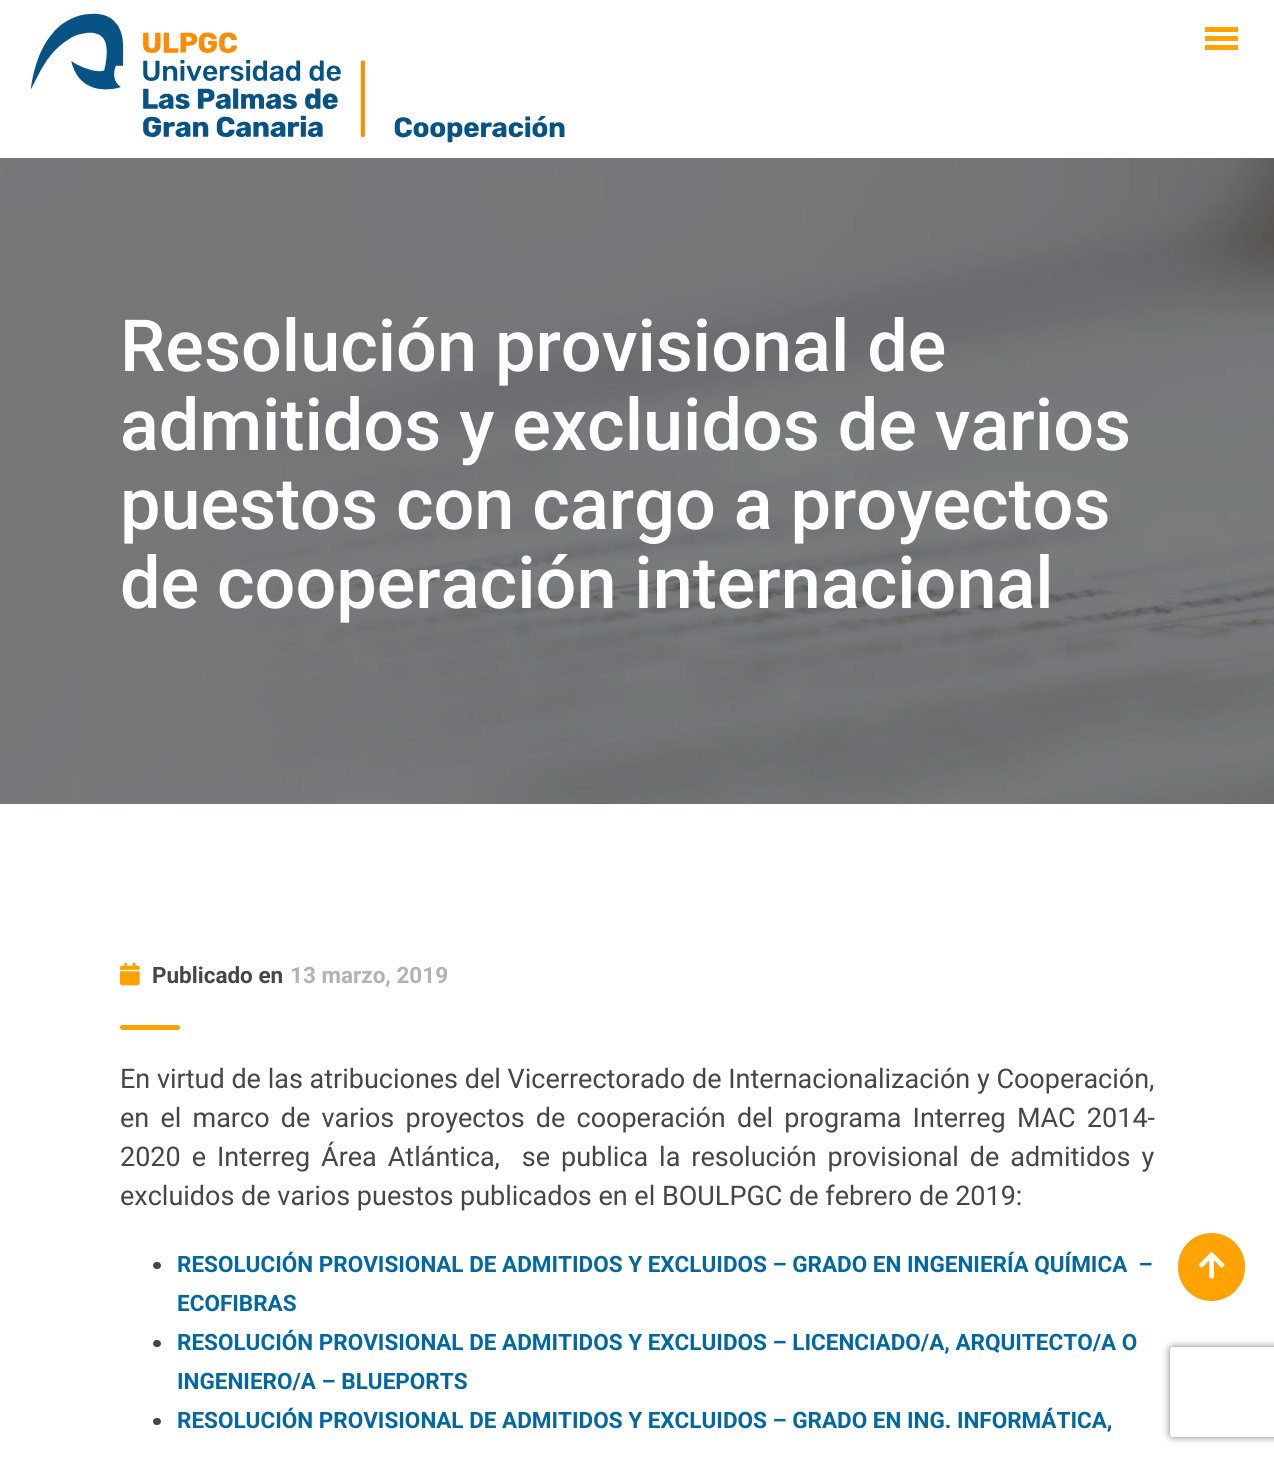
#include <cairo.h>
#include <math.h>
#include <stddef.h>

static cairo_t *c;
static void C(unsigned color){cairo_set_source_rgb(c, (color >> 16) / 255.0, (color >> 8 & 255) / 255.0, (color & 255) / 255.0);}
static void F(const char *family, double size, int italic, int bold){cairo_select_font_face(c, family, italic ? CAIRO_FONT_SLANT_ITALIC : CAIRO_FONT_SLANT_NORMAL,bold ? CAIRO_FONT_WEIGHT_BOLD : CAIRO_FONT_WEIGHT_NORMAL);cairo_set_font_size(c, size);}
static void T(double x, double y, const char *s){cairo_move_to(c, x, y);cairo_show_text(c, s);}
static void L(double x, double y, const char *s, double letter, double word){cairo_move_to(c, x, y);while (*s) {char ch[5] = {0};int n = 0;do ch[n++] = *s++; while ((*s & 0xC0) == 0x80);cairo_show_text(c, ch);cairo_rel_move_to(c, letter + word * (*ch == ' '), 0);}}
static void R(double x, double y, double w, double h){cairo_rectangle(c, x, y, w, h);cairo_fill(c);}
static void Q(double x, double y, double w, double h, double r){cairo_new_sub_path(c);cairo_arc(c, x + w - r, y + h - r, r, 0, M_PI / 2);cairo_arc(c, x + r, y + h - r, r, M_PI / 2, M_PI);cairo_arc(c, x + r, y + r, r, M_PI, 1.5 * M_PI);cairo_arc(c, x + w - r, y + r, r, 1.5 * M_PI, 2 * M_PI);cairo_close_path(c);}
static void S(double x, double y, double w, double h, double r, double blur, double alpha){cairo_push_group_with_content(c, CAIRO_CONTENT_ALPHA);cairo_set_operator(c, CAIRO_OPERATOR_SOURCE);for (int i = 15; i >= -15 && fmin(w, h) + blur * i / 3 > 0; i -= 2) {double e = blur * i / 6;cairo_set_source_rgba(c, 0, 0, 0, alpha * erfc((i - 1) / 8.5) / 2);Q(x - e, y - e, w + 2 * e, h + 2 * e, fmax(0, fmin(r + e + blur * .6, fmin(w, h) / 2 + e)));cairo_fill(c);}cairo_pattern_t *soft = cairo_pop_group(c);cairo_mask(c, soft);cairo_pattern_destroy(soft);}
static void I(const char *path, double x, double y, double w, double h){cairo_surface_t *image = cairo_image_surface_create_from_png(path);cairo_save(c);cairo_set_source_surface(c, image, x, y);cairo_rectangle(c, x, y, w, h);cairo_fill(c);cairo_restore(c);cairo_surface_destroy(image);}
int main(void) {
cairo_surface_t *surface = cairo_image_surface_create(CAIRO_FORMAT_RGB24, 1274, 1458);
c = cairo_create(surface);
cairo_font_options_t *options = cairo_font_options_create();
cairo_font_options_set_hint_metrics(options, CAIRO_HINT_METRICS_OFF);
cairo_font_options_set_hint_style(options, CAIRO_HINT_STYLE_NONE);
cairo_set_font_options(c, options);
cairo_set_miter_limit(c, 4);
C(0xffffff);
cairo_paint(c);
I("1.png",31,13,534,130);
C(0xffa203);
R(1205,27,33,5);
R(1205,36,33,5);
R(1205,45,33,5);
I("2.png",0,158,1274,646);
F("Roboto Medium",72,0,0);
C(0xffffff);
T(120,371,"Resolución provisional de");
T(120,450,"admitidos y excluidos de varios");
T(120,529,"puestos con cargo a proyectos");
T(120,608,"de cooperación internacional");
I("3.png",120,962,20,24);
F("Roboto",22.5,0,1);
C(0x464646);
T(152,983,"Publicado en");
C(0xb2b2b2);
T(290,983,"13 marzo, 2019");
C(0xffa203);
Q(120,1025,60,5,2.5);
cairo_fill(c);
F("Roboto",27,0,0);
C(0x464646);
T(120,1088,"En virtud de las atribuciones del Vicerrectorado de Internacionalización y Cooperación,");
L(120,1127,"en el marco de varios proyectos de cooperación del programa Interreg MAC 2014-",0,4.5);
L(120,1166,"2020 e Interreg Área Atlántica,  se publica la resolución provisional de admitidos y",0,4.25);
T(120,1205,"excluidos de varios puestos publicados en el BOULPGC de febrero de 2019:");
Q(153,1262,8,7,3.5);
cairo_fill(c);
F("Roboto",22.5,0,1);
C(0x0368a2);
T(177,1272,"RESOLUCIÓN PROVISIONAL DE ADMITIDOS Y EXCLUIDOS – GRADO EN INGENIERÍA QUÍMICA  –");
T(177,1311,"ECOFIBRAS");
C(0x464646);
Q(153,1340,8,7,3.5);
cairo_fill(c);
C(0x0368a2);
T(177,1350,"RESOLUCIÓN PROVISIONAL DE ADMITIDOS Y EXCLUIDOS – LICENCIADO/A, ARQUITECTO/A O");
T(177,1389,"INGENIERO/A – BLUEPORTS");
C(0x464646);
Q(153,1418,8,7,3.5);
cairo_fill(c);
C(0x0368a2);
T(177,1428,"RESOLUCIÓN PROVISIONAL DE ADMITIDOS Y EXCLUIDOS – GRADO EN ING. INFORMÁTICA,");
C(0xffa203);
Q(1178,1233,67,68,33.5);
cairo_fill(c);
I("4.png",1198,1252,27,27);
cairo_save(c);
cairo_set_fill_rule(c,CAIRO_FILL_RULE_EVEN_ODD);
cairo_new_path(c);
cairo_move_to(c,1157,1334);
cairo_line_to(c,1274,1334);
cairo_line_to(c,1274,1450);
cairo_line_to(c,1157,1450);
cairo_close_path(c);
cairo_move_to(c,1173,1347);
cairo_line_to(c,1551,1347);
cairo_curve_to(c,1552.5,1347,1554,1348.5,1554,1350);
cairo_line_to(c,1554,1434);
cairo_curve_to(c,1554,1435.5,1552.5,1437,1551,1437);
cairo_line_to(c,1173,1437);
cairo_curve_to(c,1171.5,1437,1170,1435.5,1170,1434);
cairo_line_to(c,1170,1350);
cairo_curve_to(c,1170,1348.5,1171.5,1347,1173,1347);
cairo_close_path(c);
cairo_clip(c);
C(0x818181);
S(1170,1347,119,90,3,4,1);
cairo_restore(c);
cairo_surface_write_to_png(surface, "o.png");
cairo_font_options_destroy(options);
cairo_destroy(c);
cairo_surface_destroy(surface);
return 0;
}
